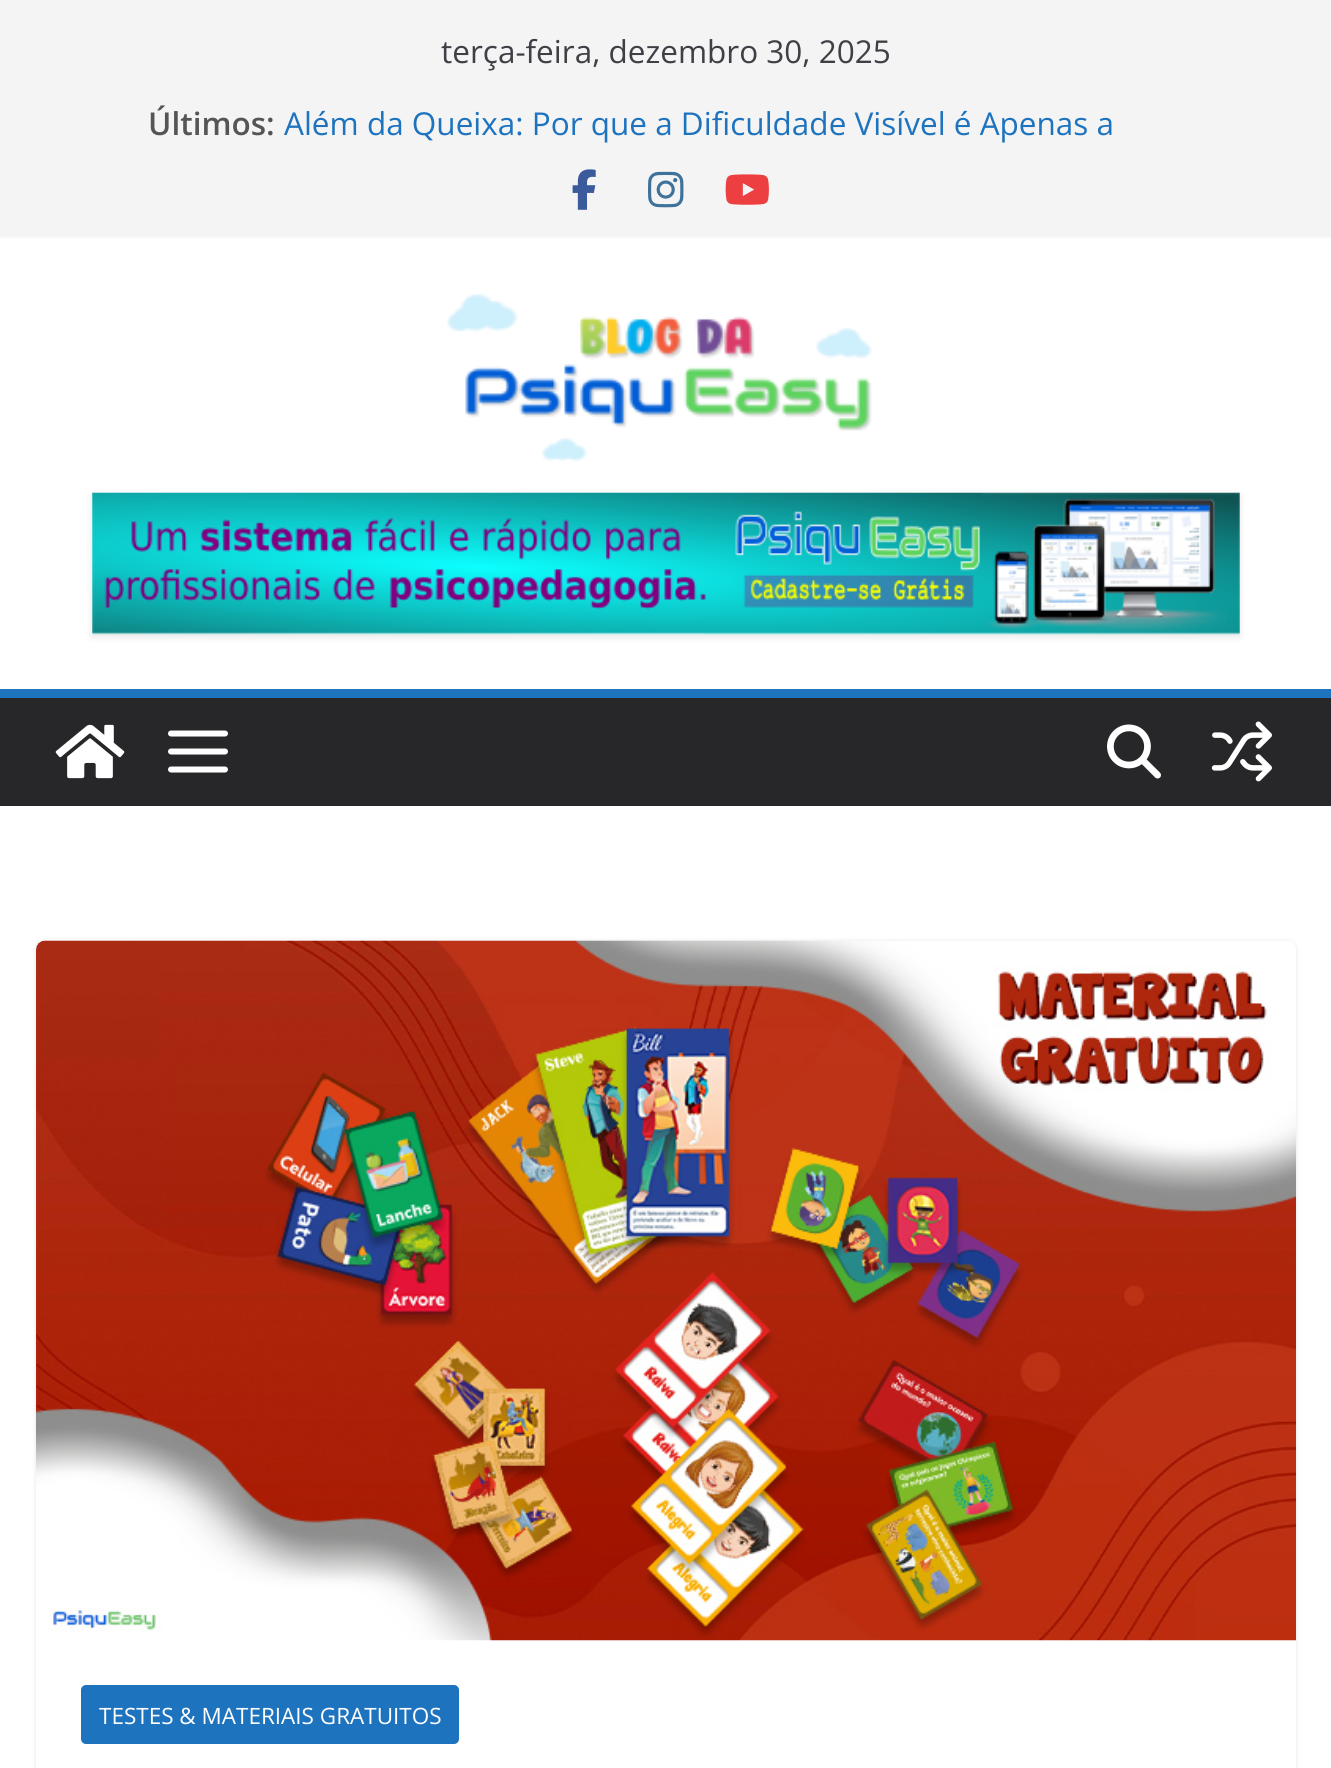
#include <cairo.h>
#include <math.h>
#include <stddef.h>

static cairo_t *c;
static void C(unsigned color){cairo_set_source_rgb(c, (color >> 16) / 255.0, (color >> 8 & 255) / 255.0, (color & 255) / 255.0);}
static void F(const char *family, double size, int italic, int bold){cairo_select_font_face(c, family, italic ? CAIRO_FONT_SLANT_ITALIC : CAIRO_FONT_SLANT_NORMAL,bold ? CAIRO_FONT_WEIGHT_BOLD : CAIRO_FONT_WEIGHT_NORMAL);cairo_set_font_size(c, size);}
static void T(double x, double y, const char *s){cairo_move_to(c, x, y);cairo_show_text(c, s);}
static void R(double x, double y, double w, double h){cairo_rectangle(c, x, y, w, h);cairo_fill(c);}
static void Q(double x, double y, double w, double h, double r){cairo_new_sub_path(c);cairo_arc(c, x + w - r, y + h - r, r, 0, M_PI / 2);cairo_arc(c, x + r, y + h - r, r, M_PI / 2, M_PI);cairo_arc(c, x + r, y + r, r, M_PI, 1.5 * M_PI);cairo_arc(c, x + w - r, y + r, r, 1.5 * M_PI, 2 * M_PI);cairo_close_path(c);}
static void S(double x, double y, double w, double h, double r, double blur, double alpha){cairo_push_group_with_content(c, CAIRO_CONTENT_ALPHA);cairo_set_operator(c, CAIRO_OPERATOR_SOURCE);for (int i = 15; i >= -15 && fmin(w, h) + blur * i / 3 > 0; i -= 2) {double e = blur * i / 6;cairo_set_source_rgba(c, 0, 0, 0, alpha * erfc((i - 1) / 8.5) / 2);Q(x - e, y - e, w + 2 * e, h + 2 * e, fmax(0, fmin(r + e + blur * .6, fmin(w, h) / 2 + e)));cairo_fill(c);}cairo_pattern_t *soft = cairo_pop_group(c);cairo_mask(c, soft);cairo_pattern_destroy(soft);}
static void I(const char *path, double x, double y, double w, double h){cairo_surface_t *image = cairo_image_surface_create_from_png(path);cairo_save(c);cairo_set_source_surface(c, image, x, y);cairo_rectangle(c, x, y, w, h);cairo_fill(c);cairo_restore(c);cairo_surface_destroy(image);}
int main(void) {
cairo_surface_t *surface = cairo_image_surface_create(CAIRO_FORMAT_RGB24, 1331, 1768);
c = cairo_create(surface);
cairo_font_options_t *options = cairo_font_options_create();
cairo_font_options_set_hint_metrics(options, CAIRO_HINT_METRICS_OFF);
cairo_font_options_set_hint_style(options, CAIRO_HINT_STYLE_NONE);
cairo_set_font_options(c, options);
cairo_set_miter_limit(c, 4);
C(0xffffff);
cairo_paint(c);
C(0x000000);
S(0,0,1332,236,0,2,.1);
C(0xf4f4f5);
R(0,0,1331,236);
F("Open Sans",31.5,0,0);
C(0x3f3f46);
T(441,63,"terça-feira, dezembro 30, 2025");
F("Open Sans SemiBold",31.5,0,0);
C(0x555555);
T(148,135,"Últimos:");
F("Open Sans",31.5,0,0);
C(0x1e73be);
T(284,135,"Além da Queixa: Por que a Dificuldade Visível é Apenas a");
I("1.png",572,169,24,41);
I("2.png",648,171,36,37);
I("3.png",725,174,44,31);
I("4.png",447,294,425,168);
cairo_save(c);
cairo_set_fill_rule(c,CAIRO_FILL_RULE_EVEN_ODD);
cairo_new_path(c);
cairo_move_to(c,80,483);
cairo_line_to(c,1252,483);
cairo_line_to(c,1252,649);
cairo_line_to(c,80,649);
cairo_close_path(c);
cairo_move_to(c,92,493);
cairo_line_to(c,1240,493);
cairo_line_to(c,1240,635);
cairo_line_to(c,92,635);
cairo_close_path(c);
cairo_clip(c);
C(0x000000);
S(92,495,1148,142,0,3.5,.1);
cairo_restore(c);
I("5.png",92,492,1148,143);
C(0x27272a);
R(0,698,1331,108);
C(0x1e73be);
R(0,689,1331,9);
I("6.png",55,724,70,55);
I("7.png",168,730,60,43);
I("8.png",1107,724,54,55);
I("9.png",1211,721,61,61);
cairo_save(c);
cairo_set_fill_rule(c,CAIRO_FILL_RULE_EVEN_ODD);
cairo_new_path(c);
cairo_move_to(c,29,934);
cairo_line_to(c,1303,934);
cairo_line_to(c,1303,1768);
cairo_line_to(c,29,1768);
cairo_close_path(c);
cairo_move_to(c,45,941);
cairo_line_to(c,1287,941);
cairo_curve_to(c,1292,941,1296,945,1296,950);
cairo_line_to(c,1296,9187);
cairo_curve_to(c,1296,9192,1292,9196,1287,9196);
cairo_line_to(c,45,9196);
cairo_curve_to(c,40,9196,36,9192,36,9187);
cairo_line_to(c,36,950);
cairo_curve_to(c,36,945,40,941,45,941);
cairo_close_path(c);
cairo_clip(c);
C(0xe4e4e7);
S(36,941,1260,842,9,2,1);
cairo_restore(c);
I("10.png",36,940,1260,701);
Q(81,1685,378,59,5);
cairo_fill(c);
F("Open Sans",22.5,0,0);
C(0xffffff);
T(99,1724,"TESTES & MATERIAIS GRATUITOS");
cairo_surface_write_to_png(surface, "o.png");
cairo_font_options_destroy(options);
cairo_destroy(c);
cairo_surface_destroy(surface);
return 0;
}
